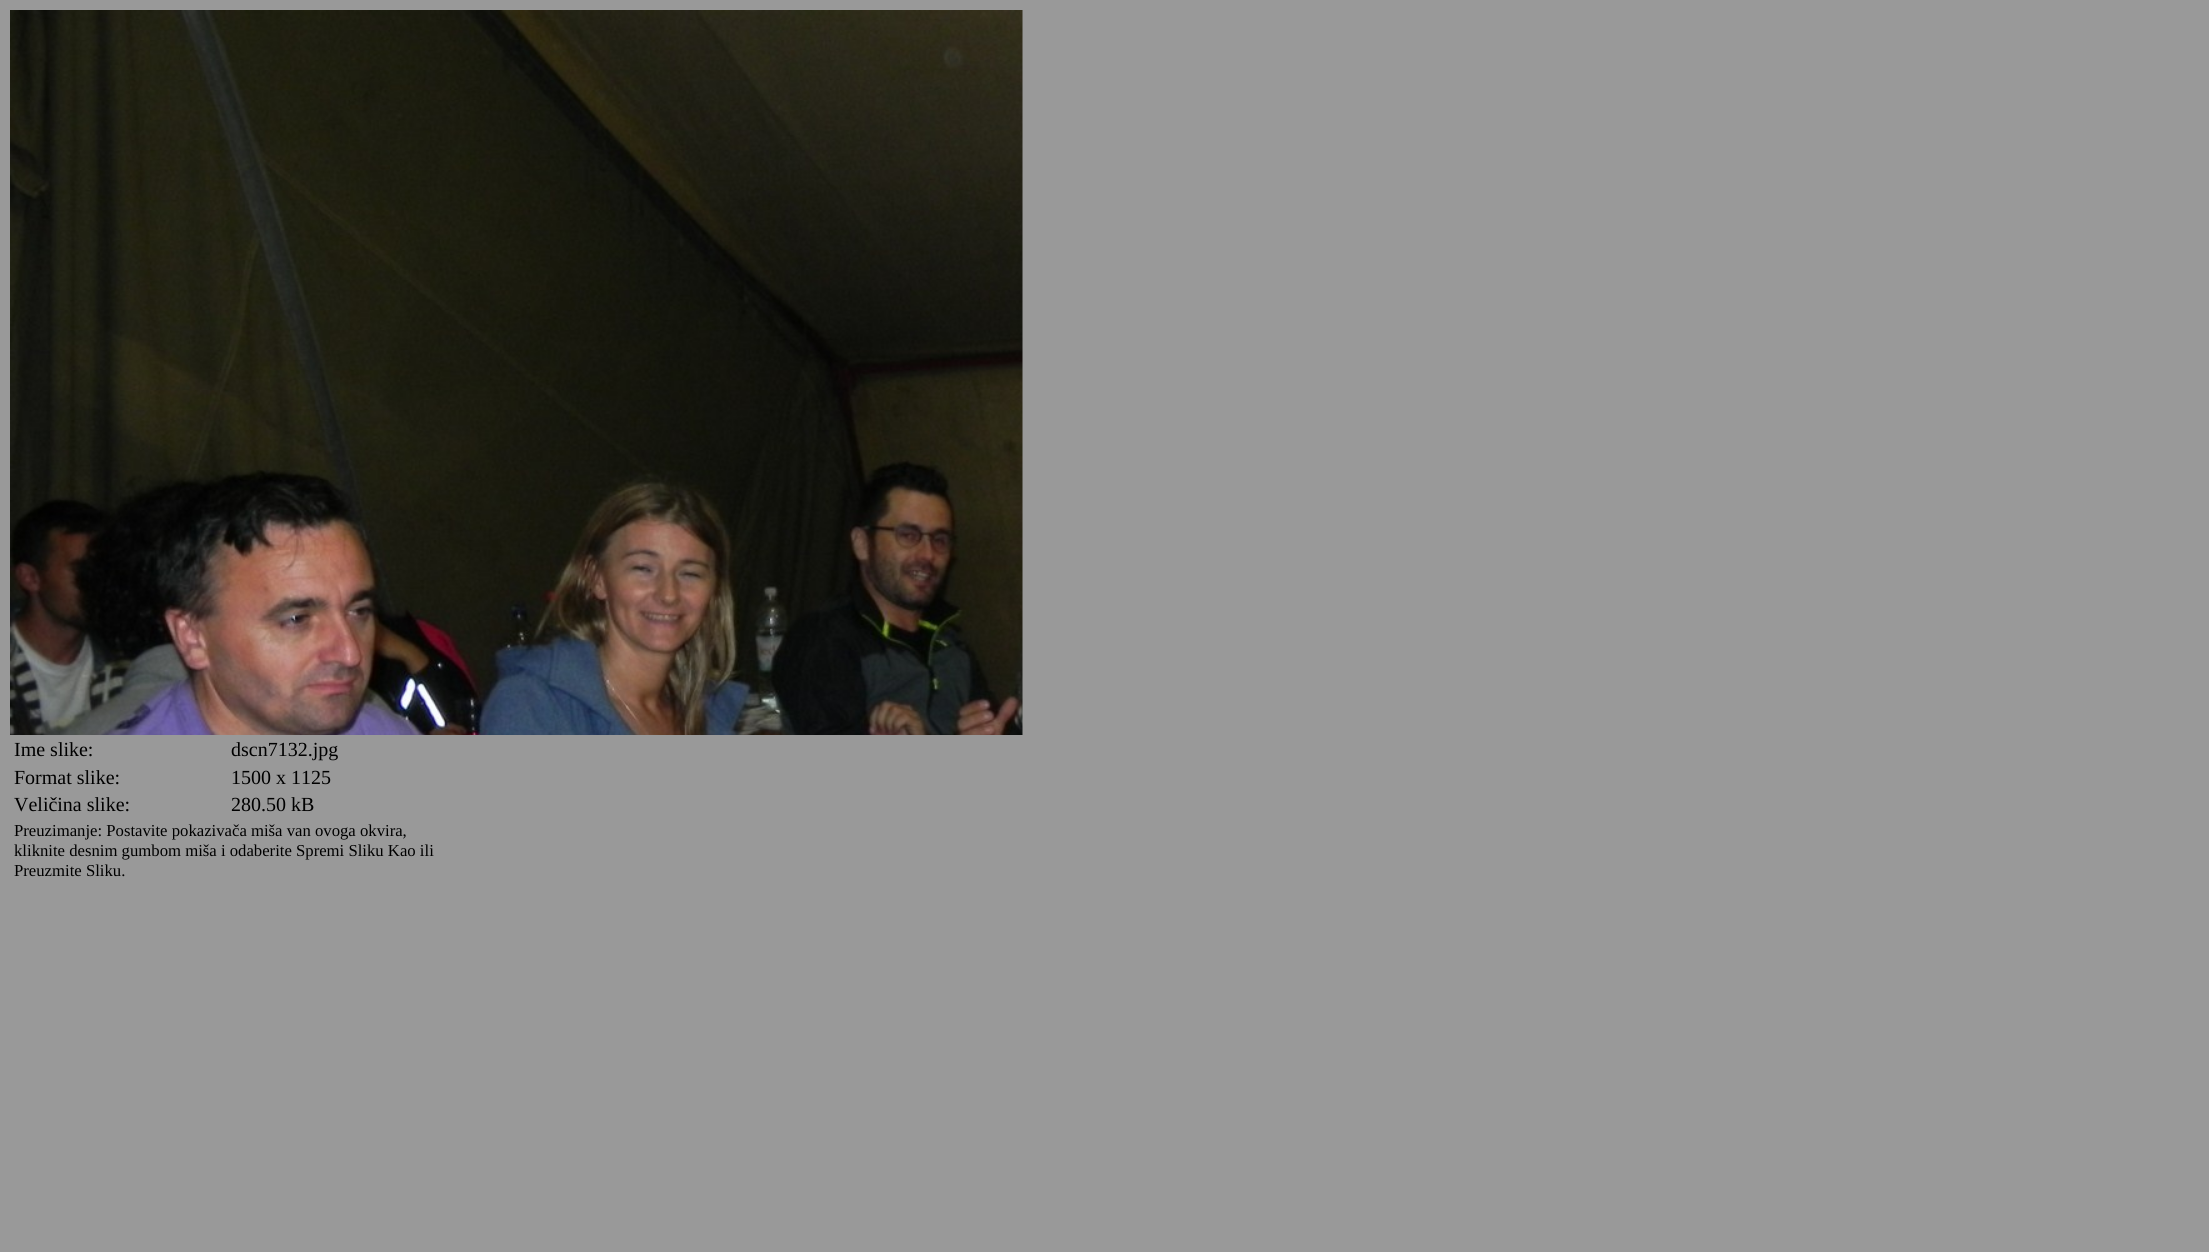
#include <cairo.h>
#include <math.h>
#include <stddef.h>

static cairo_t *c;
static void C(unsigned color){cairo_set_source_rgb(c, (color >> 16) / 255.0, (color >> 8 & 255) / 255.0, (color & 255) / 255.0);}
static void F(const char *family, double size, int italic, int bold){cairo_select_font_face(c, family, italic ? CAIRO_FONT_SLANT_ITALIC : CAIRO_FONT_SLANT_NORMAL,bold ? CAIRO_FONT_WEIGHT_BOLD : CAIRO_FONT_WEIGHT_NORMAL);cairo_set_font_size(c, size);}
static void T(double x, double y, const char *s){cairo_move_to(c, x, y);cairo_show_text(c, s);}
static void I(const char *path, double x, double y, double w, double h){cairo_surface_t *image = cairo_image_surface_create_from_png(path);cairo_save(c);cairo_set_source_surface(c, image, x, y);cairo_rectangle(c, x, y, w, h);cairo_fill(c);cairo_restore(c);cairo_surface_destroy(image);}
int main(void) {
cairo_surface_t *surface = cairo_image_surface_create(CAIRO_FORMAT_RGB24, 2209, 1252);
c = cairo_create(surface);
cairo_font_options_t *options = cairo_font_options_create();
cairo_font_options_set_hint_metrics(options, CAIRO_HINT_METRICS_OFF);
cairo_font_options_set_hint_style(options, CAIRO_HINT_STYLE_NONE);
cairo_set_font_options(c, options);
cairo_set_miter_limit(c, 4);
C(0x999999);
cairo_paint(c);
I("1.png",10,10,1013,725);
F("Liberation Serif",20,0,0);
C(0x000000);
T(14,756,"Ime slike:");
T(231,756,"dscn7132.jpg");
T(14,784,"Format slike:");
T(231,784,"1500 x 1125");
T(14,811,"Veličina slike:");
T(231,811,"280.50 kB");
F("Liberation Serif",16.7,0,0);
T(14,836,"Preuzimanje: Postavite pokazivača miša van ovoga okvira,");
T(14,856,"kliknite desnim gumbom miša i odaberite Spremi Sliku Kao ili");
T(14,876,"Preuzmite Sliku.");
cairo_surface_write_to_png(surface, "o.png");
cairo_font_options_destroy(options);
cairo_destroy(c);
cairo_surface_destroy(surface);
return 0;
}
